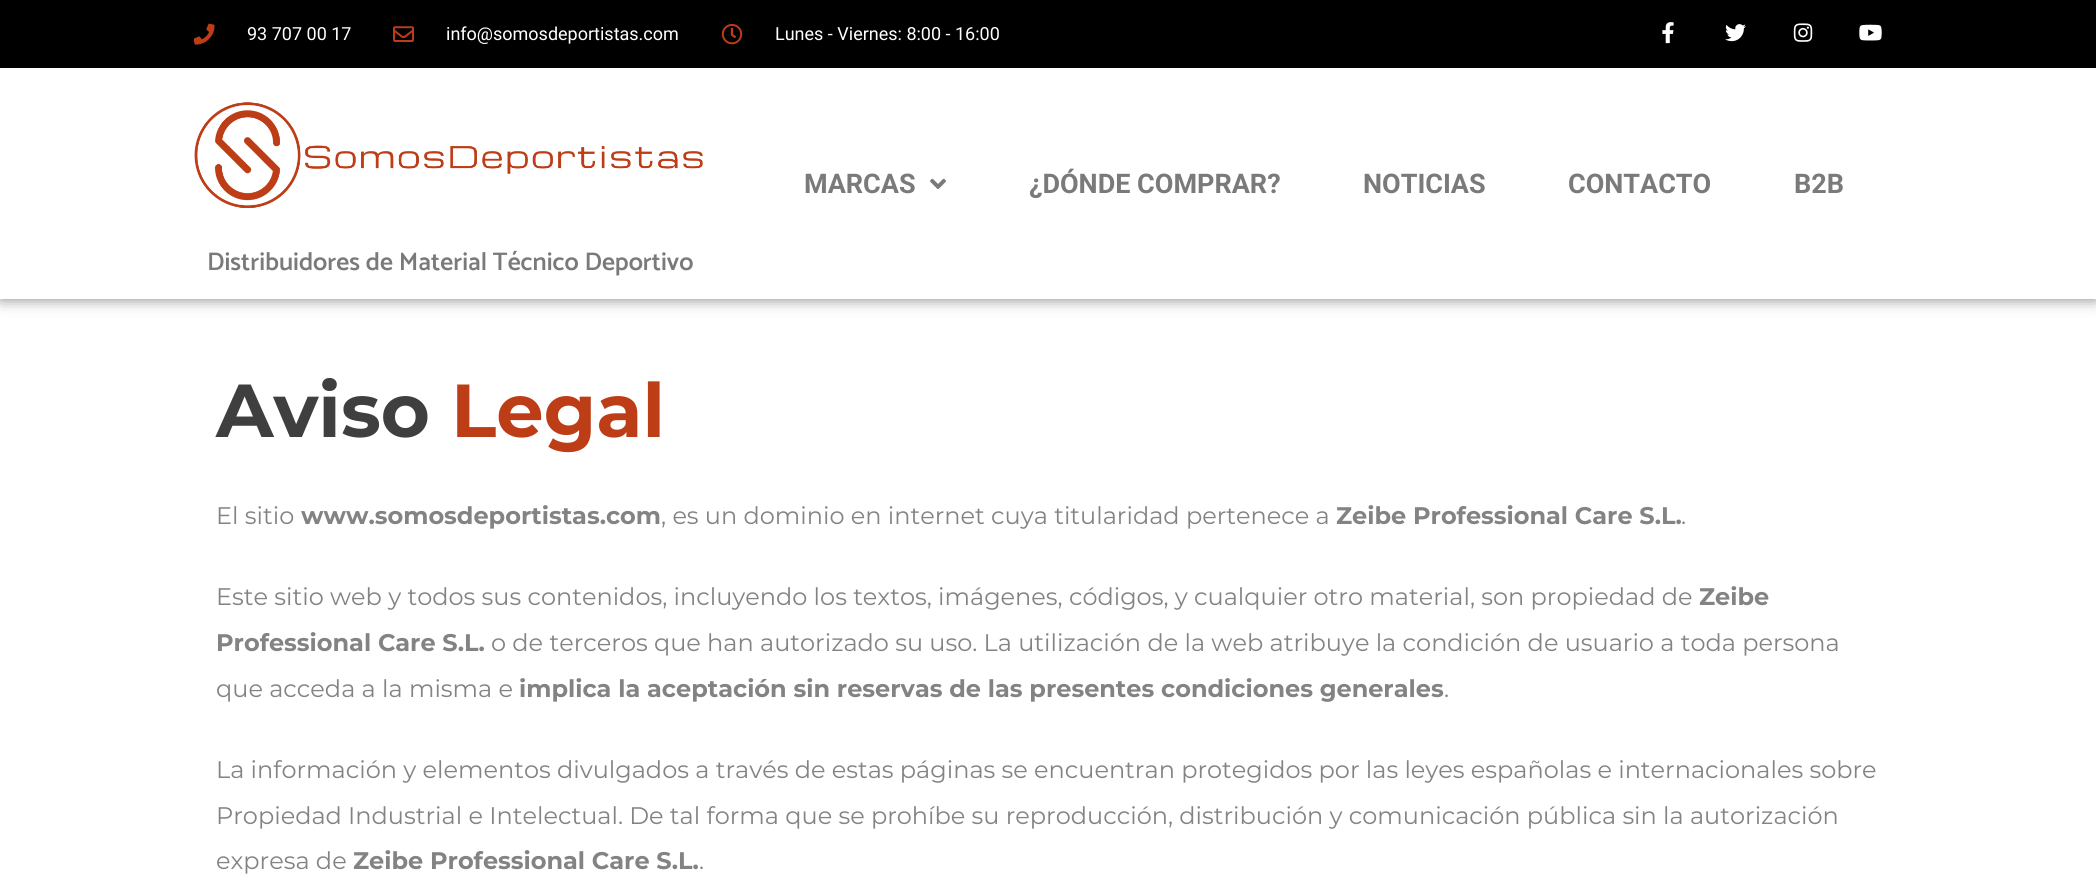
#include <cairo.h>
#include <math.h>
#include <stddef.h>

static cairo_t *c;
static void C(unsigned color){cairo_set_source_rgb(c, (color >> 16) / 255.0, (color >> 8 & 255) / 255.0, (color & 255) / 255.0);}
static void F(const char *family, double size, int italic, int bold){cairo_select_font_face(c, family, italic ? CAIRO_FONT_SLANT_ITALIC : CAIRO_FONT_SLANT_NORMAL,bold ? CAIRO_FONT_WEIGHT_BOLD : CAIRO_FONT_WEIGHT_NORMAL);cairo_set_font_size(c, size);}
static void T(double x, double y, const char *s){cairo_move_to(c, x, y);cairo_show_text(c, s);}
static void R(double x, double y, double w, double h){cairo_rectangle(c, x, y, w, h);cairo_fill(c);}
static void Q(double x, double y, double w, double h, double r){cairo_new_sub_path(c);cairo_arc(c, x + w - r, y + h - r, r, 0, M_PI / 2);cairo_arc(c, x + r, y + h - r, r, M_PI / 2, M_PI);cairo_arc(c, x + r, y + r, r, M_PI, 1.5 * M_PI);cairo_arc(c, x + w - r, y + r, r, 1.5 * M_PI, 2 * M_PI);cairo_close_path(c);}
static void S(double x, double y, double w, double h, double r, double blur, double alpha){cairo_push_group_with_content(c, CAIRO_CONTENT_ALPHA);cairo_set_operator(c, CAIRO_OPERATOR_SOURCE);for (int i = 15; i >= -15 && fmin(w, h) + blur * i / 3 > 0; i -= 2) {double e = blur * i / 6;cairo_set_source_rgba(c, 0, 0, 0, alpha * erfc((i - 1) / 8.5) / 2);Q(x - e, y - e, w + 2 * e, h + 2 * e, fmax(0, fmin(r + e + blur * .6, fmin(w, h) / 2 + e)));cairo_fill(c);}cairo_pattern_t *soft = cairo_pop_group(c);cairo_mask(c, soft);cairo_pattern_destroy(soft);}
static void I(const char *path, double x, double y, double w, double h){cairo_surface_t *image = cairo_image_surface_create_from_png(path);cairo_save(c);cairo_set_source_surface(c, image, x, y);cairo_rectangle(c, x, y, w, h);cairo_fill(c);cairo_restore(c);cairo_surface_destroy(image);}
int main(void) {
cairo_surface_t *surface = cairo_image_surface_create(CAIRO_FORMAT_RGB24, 2096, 880);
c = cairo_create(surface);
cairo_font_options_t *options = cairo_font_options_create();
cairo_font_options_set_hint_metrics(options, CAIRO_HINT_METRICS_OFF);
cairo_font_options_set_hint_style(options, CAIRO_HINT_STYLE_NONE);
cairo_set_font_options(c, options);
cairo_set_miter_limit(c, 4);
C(0xffffff);
cairo_paint(c);
C(0x000000);
R(0,0,2096,68);
I("1.png",194,23,21,22);
F("Roboto",18,0,0);
C(0xffffff);
T(247,40,"93 707 00 17");
I("2.png",393,26,21,16);
T(446,40,"info@somosdeportistas.com");
I("3.png",721,24,22,21);
T(775,40,"Lunes - Viernes: 8:00 - 16:00");
I("4.png",1662,22,12,22);
I("5.png",1725,24,21,18);
I("6.png",1793,23,20,19);
I("7.png",1859,24,23,17);
C(0x000000);
S(0,68,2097,231,1.5,7.5,.5);
C(0xffffff);
R(0,68,2096,231);
F("Roboto",27,0,1);
C(0x7a7a7a);
T(804,193,"MARCAS");
I("8.png",930,178,16,11);
T(1029,193,"¿DÓNDE COMPRAR?");
T(1363,193,"NOTICIAS");
T(1568,193,"CONTACTO");
T(1794,193,"B2B");
I("9.png",194,102,509,106);
F("Catamaran SemiBold",25.5,0,0);
T(207,270,"Distribuidores de Material Técnico Deportivo");
F("Montserrat",75,0,1);
C(0x3f3f3f);
T(216,437,"Aviso");
C(0xbd3d16);
T(451,437,"Legal");
F("Montserrat",24,0,0);
C(0x838383);
T(216,524,"El sitio");
F("Montserrat",24,0,1);
T(301,524,"www.somosdeportistas.com");
F("Montserrat",24,0,0);
T(661,524,", es un dominio en internet cuya titularidad pertenece a");
F("Montserrat",24,0,1);
T(1336,524,"Zeibe Professional Care S.L.");
F("Montserrat",24,0,0);
T(1681,524,".");
T(216,605,"Este sitio web y todos sus contenidos, incluyendo los textos, imágenes, códigos, y cualquier otro material, son propiedad de");
F("Montserrat",24,0,1);
T(1699,605,"Zeibe");
T(216,651,"Professional Care S.L.");
F("Montserrat",24,0,0);
T(491,651,"o de terceros que han autorizado su uso. La utilización de la web atribuye la condición de usuario a toda persona");
T(216,697,"que acceda a la misma e");
F("Montserrat",24,0,1);
T(519,697,"implica la aceptación sin reservas de las presentes condiciones generales");
F("Montserrat",24,0,0);
T(1444,697,".");
T(216,778,"La información y elementos divulgados a través de estas páginas se encuentran protegidos por las leyes españolas e internacionales sobre");
T(216,824,"Propiedad Industrial e Intelectual. De tal forma que se prohíbe su reproducción, distribución y comunicación pública sin la autorización");
T(216,869,"expresa de");
F("Montserrat",24,0,1);
T(353,869,"Zeibe Professional Care S.L.");
F("Montserrat",24,0,0);
T(699,869,".");
cairo_surface_write_to_png(surface, "o.png");
cairo_font_options_destroy(options);
cairo_destroy(c);
cairo_surface_destroy(surface);
return 0;
}
